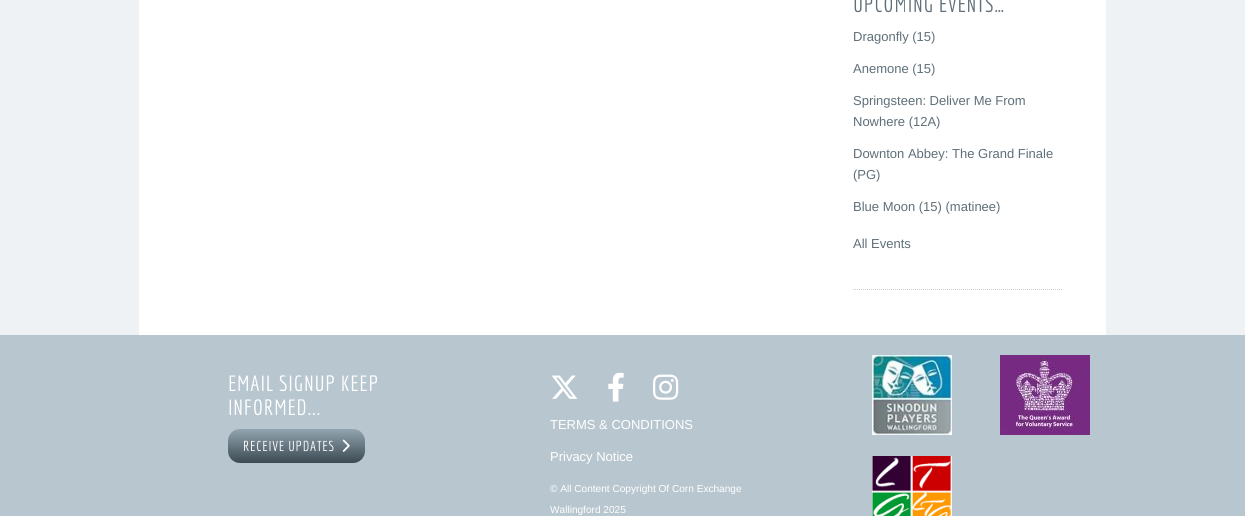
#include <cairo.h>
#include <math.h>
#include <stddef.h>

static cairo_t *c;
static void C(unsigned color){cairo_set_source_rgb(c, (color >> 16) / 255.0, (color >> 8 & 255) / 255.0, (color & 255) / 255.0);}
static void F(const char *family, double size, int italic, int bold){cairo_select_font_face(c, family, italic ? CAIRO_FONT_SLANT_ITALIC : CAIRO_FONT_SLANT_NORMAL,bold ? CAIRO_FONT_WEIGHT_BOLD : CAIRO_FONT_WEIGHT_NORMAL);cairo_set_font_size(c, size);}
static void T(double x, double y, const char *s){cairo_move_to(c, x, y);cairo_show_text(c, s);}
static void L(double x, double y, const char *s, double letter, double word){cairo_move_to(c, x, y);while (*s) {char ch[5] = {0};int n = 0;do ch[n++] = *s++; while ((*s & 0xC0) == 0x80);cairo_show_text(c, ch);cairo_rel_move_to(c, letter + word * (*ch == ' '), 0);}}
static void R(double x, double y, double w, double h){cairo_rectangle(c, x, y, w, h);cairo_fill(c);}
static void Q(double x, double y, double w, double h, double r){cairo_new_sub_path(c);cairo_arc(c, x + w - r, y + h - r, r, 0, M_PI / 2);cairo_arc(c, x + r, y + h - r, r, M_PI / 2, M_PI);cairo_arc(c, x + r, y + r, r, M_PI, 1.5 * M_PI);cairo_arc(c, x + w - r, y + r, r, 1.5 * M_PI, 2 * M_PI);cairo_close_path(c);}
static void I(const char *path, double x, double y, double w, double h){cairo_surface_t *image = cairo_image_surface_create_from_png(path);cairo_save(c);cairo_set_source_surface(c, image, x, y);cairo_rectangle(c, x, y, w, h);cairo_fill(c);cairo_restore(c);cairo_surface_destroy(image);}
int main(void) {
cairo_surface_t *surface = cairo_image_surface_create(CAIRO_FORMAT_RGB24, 1245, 516);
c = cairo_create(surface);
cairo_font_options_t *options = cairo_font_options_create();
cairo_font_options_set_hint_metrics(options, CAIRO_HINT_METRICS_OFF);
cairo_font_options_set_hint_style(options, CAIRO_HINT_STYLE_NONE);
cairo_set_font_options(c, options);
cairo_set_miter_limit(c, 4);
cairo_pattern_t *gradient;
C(0xeff2f4);
cairo_paint(c);
C(0xffffff);
R(139,0,967,335);
F("Economica",21.5,0,0);
C(0x5f6f79);
L(853,12,"UPCOMING EVENTS…",.75,0);
F("Arimo",13,0,0);
T(853,41,"Dragonfly (15)");
T(853,73,"Anemone (15)");
T(853,105,"Springsteen: Deliver Me From");
T(853,126,"Nowhere (12A)");
T(853,158,"Downton Abbey: The Grand Finale");
T(853,179,"(PG)");
T(853,211,"Blue Moon (15) (matinee)");
T(853,248,"All Events");
cairo_new_path(c);
cairo_move_to(c,853,289.5);
cairo_line_to(c,1062,289.5);
C(0xcccccc);
cairo_set_line_width(c,1);
cairo_set_dash(c,(double[]){1,1},2,0);
cairo_stroke(c);
C(0xb8c6cf);
R(0,335,1245,181);
F("Economica",21.5,0,0);
C(0xffffff);
L(228,391,"EMAIL SIGNUP KEEP",.75,0);
L(228,415,"INFORMED...",.75,0);
gradient = cairo_pattern_create_linear(297,429,297,463);
cairo_pattern_add_color_stop_rgba(gradient,0,0.576,0.647,0.69,1);
cairo_pattern_add_color_stop_rgba(gradient,1,0.231,0.29,0.325,1);
cairo_set_source(c,gradient);
cairo_pattern_destroy(gradient);
Q(228,429,137,34,12);
cairo_fill(c);
F("Economica",14,0,0);
C(0xffffff);
L(243,451,"RECEIVE UPDATES",.75,0);
I("1.png",342,439,8,13);
I("2.png",551,375,27,24);
I("3.png",608,372,16,30);
I("4.png",653,374,26,26);
F("Arimo",13,0,0);
T(550,429,"TERMS & CONDITIONS");
T(550,461,"Privacy Notice");
F("Arimo",10.1,0,0);
T(550,492,"© All Content Copyright Of Corn Exchange");
T(550,513,"Wallingford 2025");
I("5.png",872,355,80,80);
I("6.png",1000,355,90,80);
I("7.png",872,456,80,60);
cairo_surface_write_to_png(surface, "o.png");
cairo_font_options_destroy(options);
cairo_destroy(c);
cairo_surface_destroy(surface);
return 0;
}
